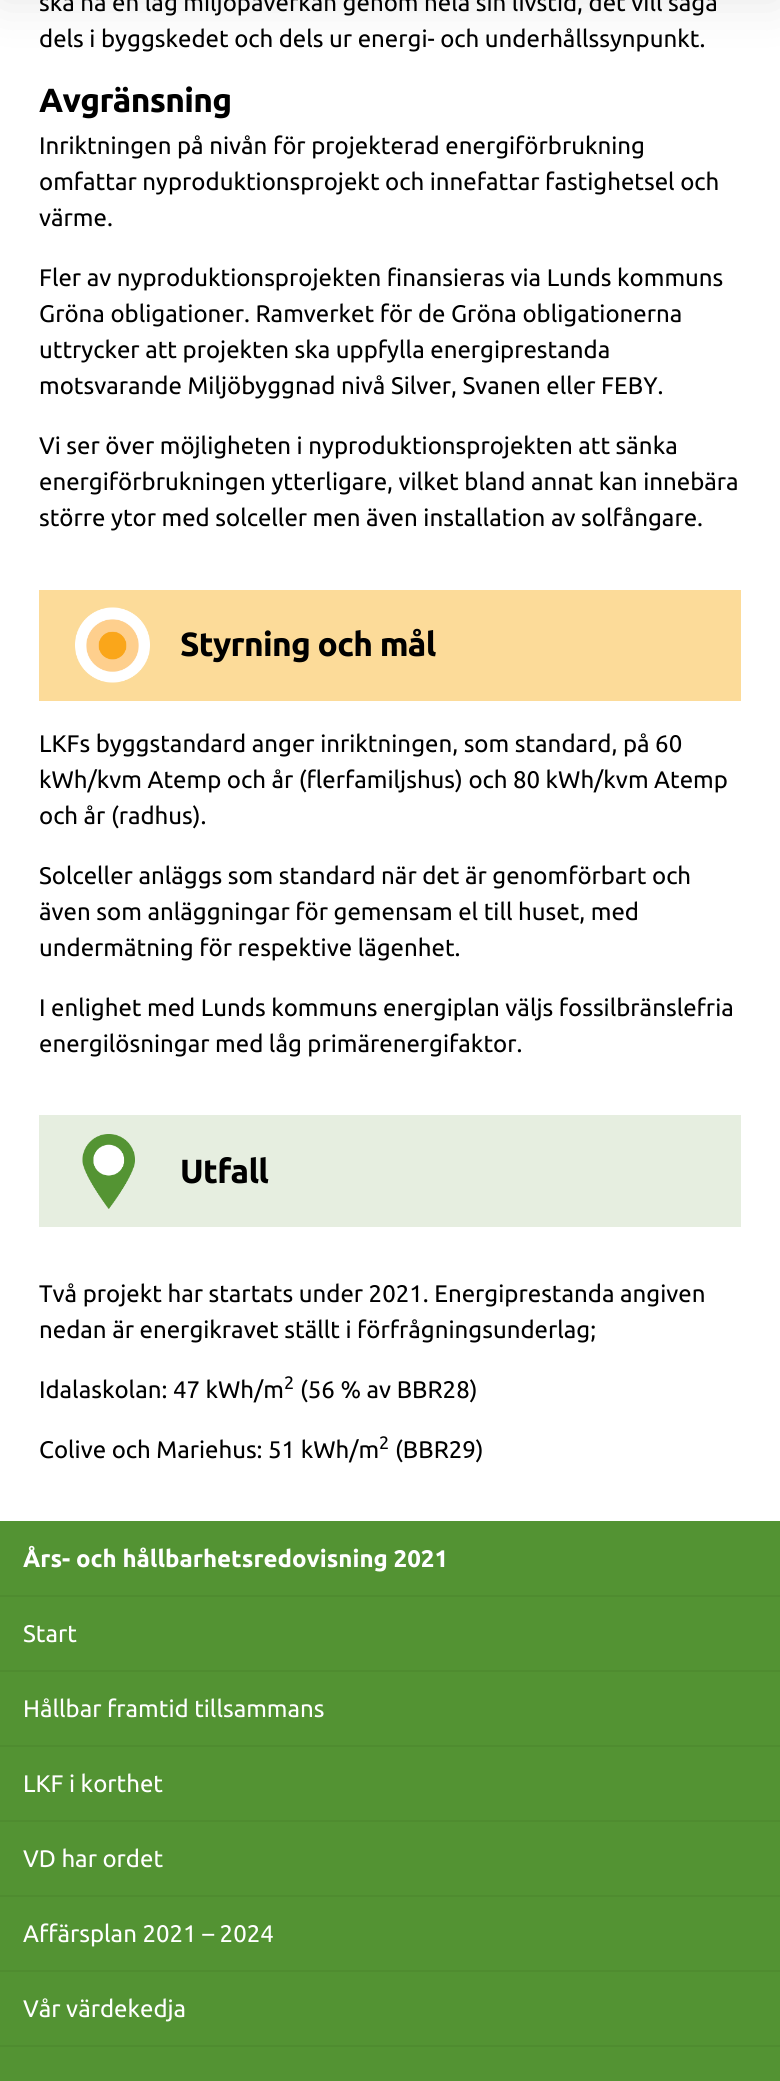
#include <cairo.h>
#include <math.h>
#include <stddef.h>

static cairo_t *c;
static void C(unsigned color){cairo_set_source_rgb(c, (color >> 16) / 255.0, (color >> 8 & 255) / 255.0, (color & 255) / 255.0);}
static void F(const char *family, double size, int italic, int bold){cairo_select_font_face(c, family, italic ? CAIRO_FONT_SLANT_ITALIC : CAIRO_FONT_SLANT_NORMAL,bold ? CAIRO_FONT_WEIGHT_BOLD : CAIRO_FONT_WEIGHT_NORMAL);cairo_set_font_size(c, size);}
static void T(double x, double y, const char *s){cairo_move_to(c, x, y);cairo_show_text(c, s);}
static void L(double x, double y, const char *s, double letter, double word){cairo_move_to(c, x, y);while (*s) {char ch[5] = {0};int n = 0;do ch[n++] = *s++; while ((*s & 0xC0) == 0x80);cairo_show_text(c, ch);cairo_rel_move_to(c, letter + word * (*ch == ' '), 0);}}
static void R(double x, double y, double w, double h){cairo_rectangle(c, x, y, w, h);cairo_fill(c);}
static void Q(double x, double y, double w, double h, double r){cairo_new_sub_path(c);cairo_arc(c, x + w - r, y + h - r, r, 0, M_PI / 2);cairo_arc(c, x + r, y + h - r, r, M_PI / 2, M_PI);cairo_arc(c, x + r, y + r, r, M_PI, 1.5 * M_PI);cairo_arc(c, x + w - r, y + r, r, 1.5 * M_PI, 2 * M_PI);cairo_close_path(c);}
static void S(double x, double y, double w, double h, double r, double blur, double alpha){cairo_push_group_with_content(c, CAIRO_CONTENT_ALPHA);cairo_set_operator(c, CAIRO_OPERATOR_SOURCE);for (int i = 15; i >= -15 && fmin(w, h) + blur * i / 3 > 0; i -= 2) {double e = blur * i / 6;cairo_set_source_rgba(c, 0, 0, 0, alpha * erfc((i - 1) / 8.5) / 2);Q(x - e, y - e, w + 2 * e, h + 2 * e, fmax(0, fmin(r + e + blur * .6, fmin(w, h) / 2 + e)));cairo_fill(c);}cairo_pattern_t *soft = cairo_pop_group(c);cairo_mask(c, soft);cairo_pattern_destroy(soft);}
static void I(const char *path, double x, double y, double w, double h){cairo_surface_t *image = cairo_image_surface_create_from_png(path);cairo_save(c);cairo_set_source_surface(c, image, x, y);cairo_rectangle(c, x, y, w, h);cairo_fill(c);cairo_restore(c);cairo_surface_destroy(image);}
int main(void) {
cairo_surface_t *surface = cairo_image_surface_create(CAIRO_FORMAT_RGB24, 780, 2081);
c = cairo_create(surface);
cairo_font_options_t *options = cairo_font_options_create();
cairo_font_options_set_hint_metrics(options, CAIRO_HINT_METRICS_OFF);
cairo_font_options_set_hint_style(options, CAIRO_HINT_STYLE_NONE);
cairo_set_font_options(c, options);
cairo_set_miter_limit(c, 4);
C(0xffffff);
cairo_paint(c);
C(0x000000);
S(0,-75,780,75,0,26,.1);
F("Ubuntu",24,0,0);
C(0x000000);
T(39,11,"ska ha en låg miljöpåverkan genom hela sin livstid, det vill säga");
T(39,47,"dels i byggskedet och dels ur energi- och underhållssynpunkt.");
F("Ubuntu",33.5,0,1);
L(39,112,"Avgränsning",-.7,0);
F("Ubuntu",24,0,0);
T(39,154,"Inriktningen på nivån för projekterad energiförbrukning");
T(39,190,"omfattar nyproduktionsprojekt och innefattar fastighetsel och");
T(39,226,"värme.");
T(39,286,"Fler av nyproduktionsprojekten finansieras via Lunds kommuns");
T(39,322,"Gröna obligationer. Ramverket för de Gröna obligationerna");
T(39,358,"uttrycker att projekten ska uppfylla energiprestanda");
T(39,394,"motsvarande Miljöbyggnad nivå Silver, Svanen eller FEBY.");
T(39,454,"Vi ser över möjligheten i nyproduktionsprojekten att sänka");
T(39,490,"energiförbrukningen ytterligare, vilket bland annat kan innebära");
T(39,526,"större ytor med solceller men även installation av solfångare.");
C(0xfcdb99);
R(39,590,702,111);
I("1.png",75,607,75,76);
F("Ubuntu",33.5,0,1);
C(0x000000);
L(180,656,"Styrning och mål",-.7,0);
F("Ubuntu",24,0,0);
T(39,752,"LKFs byggstandard anger inriktningen, som standard, på 60");
T(39,788,"kWh/kvm Atemp och år (flerfamiljshus) och 80 kWh/kvm Atemp");
T(39,824,"och år (radhus).");
T(39,884,"Solceller anläggs som standard när det är genomförbart och");
T(39,920,"även som anläggningar för gemensam el till huset, med");
T(39,956,"undermätning för respektive lägenhet.");
T(39,1016,"I enlighet med Lunds kommuns energiplan väljs fossilbränslefria");
T(39,1052,"energilösningar med låg primärenergifaktor.");
C(0xe6eee0);
R(39,1115,702,112);
I("2.png",82,1134,53,75);
F("Ubuntu",33.5,0,1);
C(0x000000);
L(180,1183,"Utfall",-.7,0);
F("Ubuntu",24,0,0);
T(39,1302,"Två projekt har startats under 2021. Energiprestanda angiven");
T(39,1338,"nedan är energikravet ställt i förfrågningsunderlag;");
T(39,1398,"Idalaskolan: 47 kWh/m");
F("Ubuntu",18,0,0);
T(284,1389,"2");
F("Ubuntu",24,0,0);
T(300,1398,"(56 % av BBR28)");
T(39,1458,"Colive och Mariehus: 51 kWh/m");
F("Ubuntu",18,0,0);
T(379,1449,"2");
F("Ubuntu",24,0,0);
T(395,1458,"(BBR29)");
C(0x539333);
R(0,1521,780,560);
C(0x4f8c30);
R(0,1595,780,2);
F("Ubuntu",24,0,1);
C(0xffffff);
T(23,1567,"Års- och hållbarhetsredovisning 2021");
C(0x4f8c30);
R(0,1670,780,2);
F("Ubuntu",24,0,0);
C(0xffffff);
T(23,1642,"Start");
C(0x4f8c30);
R(0,1745,780,2);
C(0xffffff);
T(23,1717,"Hållbar framtid tillsammans");
C(0x4f8c30);
R(0,1820,780,2);
C(0xffffff);
T(23,1792,"LKF i korthet");
C(0x4f8c30);
R(0,1895,780,2);
C(0xffffff);
T(23,1867,"VD har ordet");
C(0x4f8c30);
R(0,1970,780,2);
C(0xffffff);
T(23,1942,"Affärsplan 2021 – 2024");
C(0x4f8c30);
R(0,2045,780,2);
C(0xffffff);
T(23,2017,"Vår värdekedja");
cairo_surface_write_to_png(surface, "o.png");
cairo_font_options_destroy(options);
cairo_destroy(c);
cairo_surface_destroy(surface);
return 0;
}
